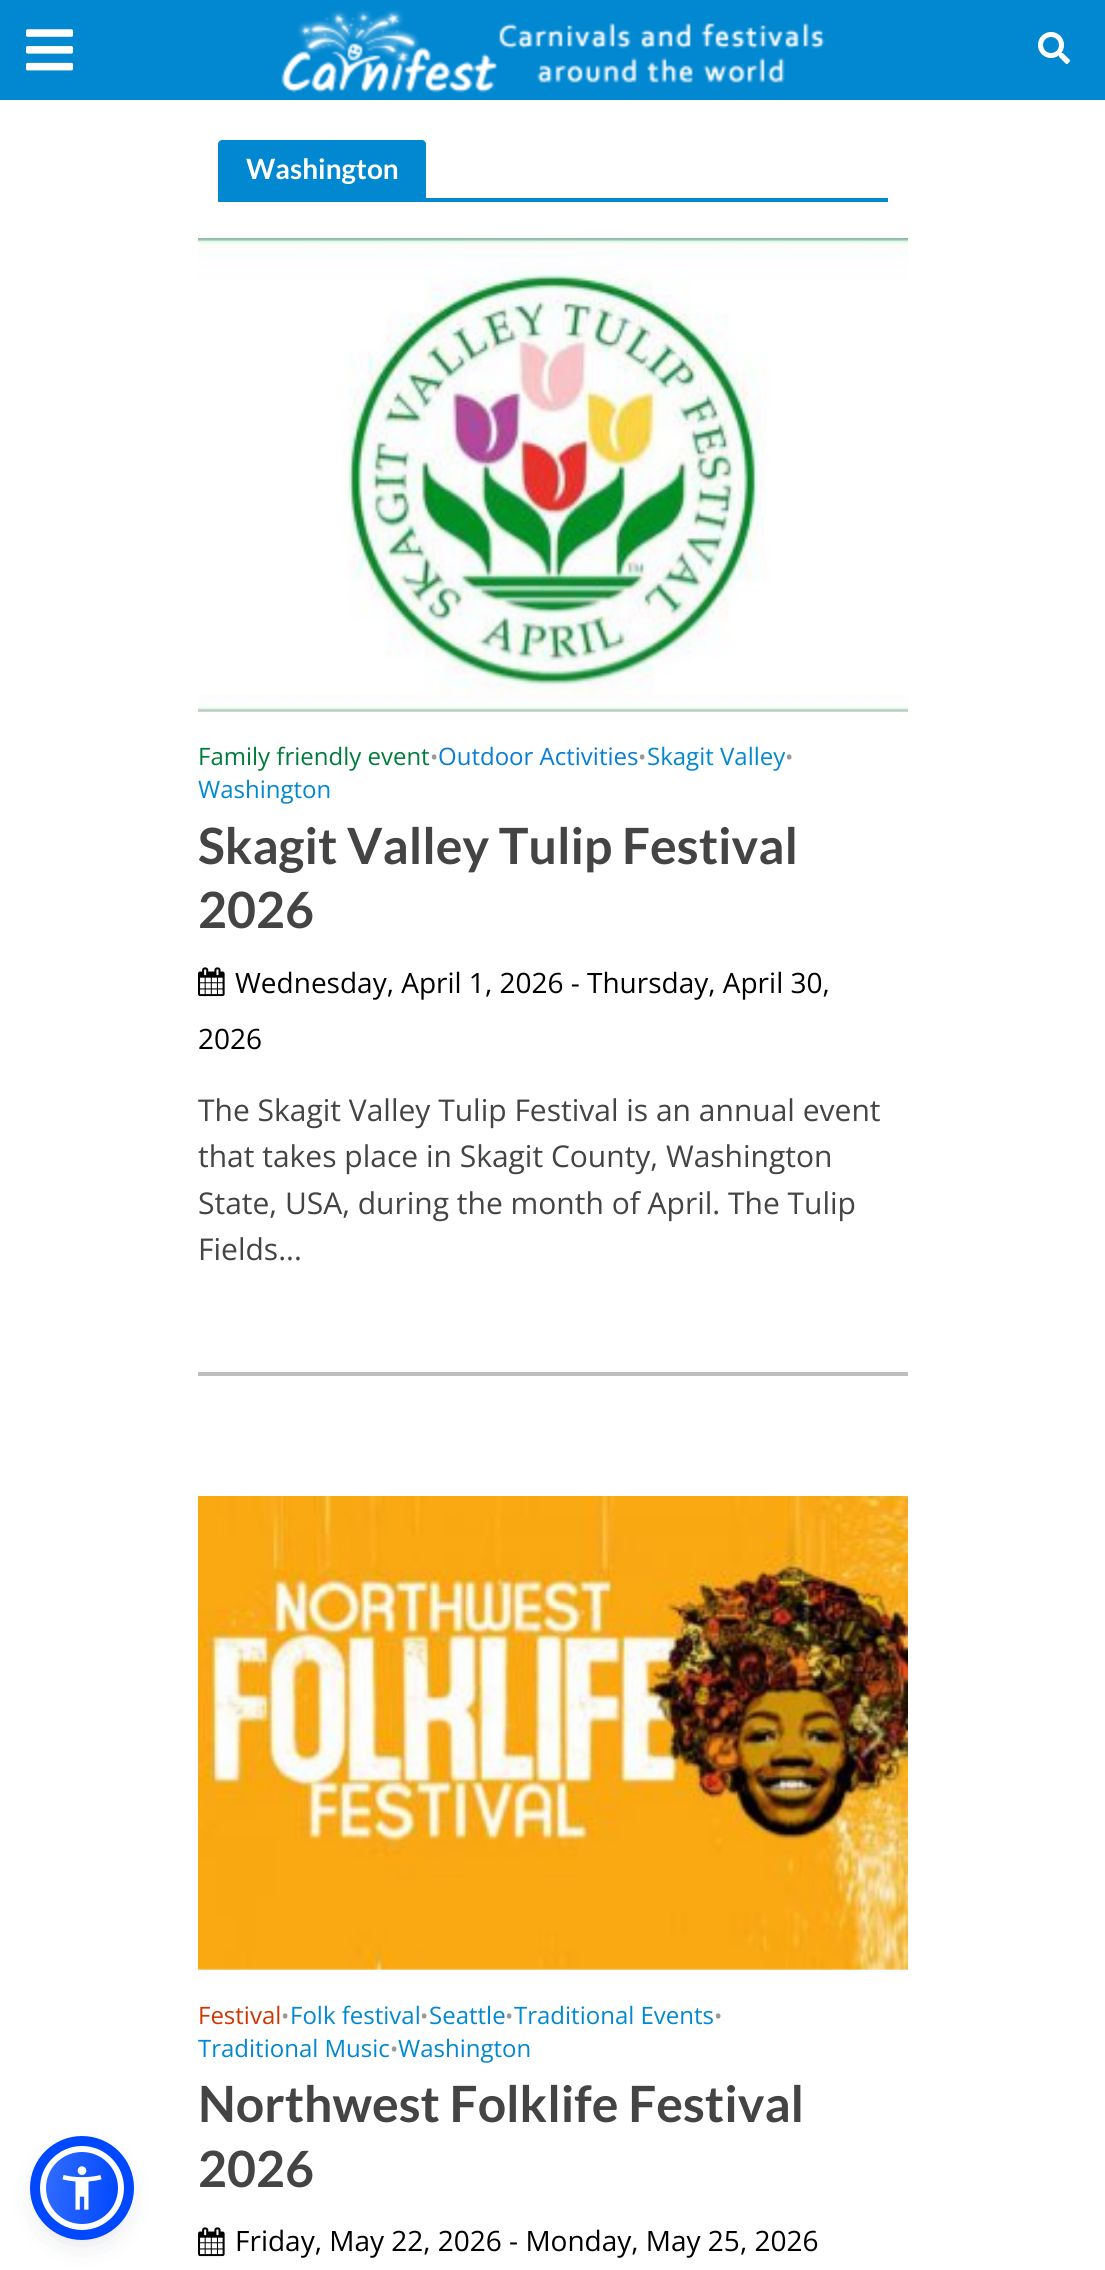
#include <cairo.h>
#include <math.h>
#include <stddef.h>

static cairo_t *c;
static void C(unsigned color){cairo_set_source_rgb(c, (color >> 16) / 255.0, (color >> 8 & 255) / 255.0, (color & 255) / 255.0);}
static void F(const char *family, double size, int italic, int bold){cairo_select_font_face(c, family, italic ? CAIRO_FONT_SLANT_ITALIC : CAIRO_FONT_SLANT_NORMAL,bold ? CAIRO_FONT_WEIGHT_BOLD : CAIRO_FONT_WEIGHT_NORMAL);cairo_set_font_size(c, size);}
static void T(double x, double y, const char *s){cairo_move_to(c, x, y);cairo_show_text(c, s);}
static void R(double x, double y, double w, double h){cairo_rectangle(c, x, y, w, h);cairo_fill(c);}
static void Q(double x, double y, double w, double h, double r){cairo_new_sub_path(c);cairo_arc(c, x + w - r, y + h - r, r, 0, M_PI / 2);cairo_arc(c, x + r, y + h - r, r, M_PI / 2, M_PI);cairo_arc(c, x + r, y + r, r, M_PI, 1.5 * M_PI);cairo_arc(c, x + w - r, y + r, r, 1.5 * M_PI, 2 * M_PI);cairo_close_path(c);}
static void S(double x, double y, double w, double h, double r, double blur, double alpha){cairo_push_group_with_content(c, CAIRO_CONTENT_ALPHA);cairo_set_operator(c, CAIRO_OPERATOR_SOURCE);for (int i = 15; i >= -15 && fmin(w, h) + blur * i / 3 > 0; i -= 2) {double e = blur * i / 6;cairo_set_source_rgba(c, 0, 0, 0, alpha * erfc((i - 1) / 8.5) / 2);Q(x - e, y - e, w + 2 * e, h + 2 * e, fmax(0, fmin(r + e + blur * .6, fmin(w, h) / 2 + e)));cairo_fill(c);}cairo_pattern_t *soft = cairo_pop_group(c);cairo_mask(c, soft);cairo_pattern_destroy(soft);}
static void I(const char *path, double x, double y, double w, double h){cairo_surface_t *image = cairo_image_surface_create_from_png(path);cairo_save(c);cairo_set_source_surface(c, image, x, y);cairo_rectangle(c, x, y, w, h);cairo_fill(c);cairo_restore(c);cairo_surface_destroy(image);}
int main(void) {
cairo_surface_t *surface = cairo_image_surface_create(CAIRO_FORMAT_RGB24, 1105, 2270);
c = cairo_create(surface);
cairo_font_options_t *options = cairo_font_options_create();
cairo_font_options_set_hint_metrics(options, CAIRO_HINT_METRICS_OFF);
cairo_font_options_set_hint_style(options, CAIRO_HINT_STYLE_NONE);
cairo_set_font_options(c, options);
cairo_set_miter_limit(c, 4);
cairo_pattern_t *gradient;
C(0xffffff);
cairo_paint(c);
C(0x0288d1);
R(0,0,1105,100);
I("1.png",26,29,48,42);
I("2.png",281,10,544,83);
I("3.png",1038,32,32,32);
C(0x5d6494);
S(40,2150,84,84,42,4,.2);
C(0x252c61);
S(40,2156,84,84,42,15,.15);
cairo_save(c);
Q(40,2146,84,84,42);
cairo_clip(c);
gradient = cairo_pattern_create_linear(43,2184,121,2192);
cairo_pattern_add_color_stop_rgba(gradient,0,0.196,0.424,1,1);
cairo_pattern_add_color_stop_rgba(gradient,1,0,0.282,1,1);
cairo_set_source(c,gradient);
cairo_pattern_destroy(gradient);
R(46,2152,72,72);
cairo_restore(c);
cairo_arc(c,82,2188,39,0,2 * M_PI);
C(0xffffff);
cairo_set_line_width(c,6);
cairo_stroke(c);
cairo_arc(c,82,2188,47,0,2 * M_PI);
C(0x0048ff);
cairo_set_line_width(c,10);
cairo_stroke(c);
I("4.png",62,2166,40,44);
C(0x0288d1);
cairo_new_path(c);
cairo_move_to(c,222,140);
cairo_line_to(c,422,140);
cairo_curve_to(c,424,140,426,142,426,144);
cairo_line_to(c,426,198);
cairo_line_to(c,218,198);
cairo_line_to(c,218,144);
cairo_curve_to(c,218,142,220,140,222,140);
cairo_close_path(c);
cairo_fill(c);
F("Lato",28,0,1);
C(0xffffff);
T(246,179,"Washington");
C(0x0288d1);
R(218,198,670,4);
C(0xbebebe);
R(198,1372,710,4);
C(0xf3f3f3);
R(198,710,710,2);
I("5.png",198,238,710,474);
F("Open Sans",24,0,0);
C(0x007c3a);
T(198,765,"Family friendly event");
F("Open Sans",22,0,0);
C(0x999999);
T(430,765,"•");
F("Open Sans",24,0,0);
C(0x087dd6);
T(438,765,"Outdoor Activities");
F("Open Sans",22,0,0);
C(0x999999);
T(638,765,"•");
F("Open Sans",24,0,0);
C(0x0288d1);
T(647,765,"Skagit Valley");
F("Open Sans",22,0,0);
C(0x999999);
T(785,765,"•");
F("Open Sans",24,0,0);
C(0x0288d1);
T(198,798,"Washington");
F("Lato",50,0,1);
C(0x444444);
T(198,864,"Skagit Valley Tulip Festival");
T(198,928,"2026");
I("6.png",198,967,27,30);
F("Open Sans",28,0,0);
C(0x000000);
T(235,993,"Wednesday, April 1, 2026 - Thursday, April 30,");
T(198,1049,"2026");
F("Open Sans",30,0,0);
C(0x444444);
T(198,1121,"The Skagit Valley Tulip Festival is an annual event");
T(198,1167,"that takes place in Skagit County, Washington");
T(198,1214,"State, USA, during the month of April. The Tulip");
T(198,1260,"Fields...");
C(0xf3f3f3);
R(198,1968,710,2);
I("7.png",198,1496,710,474);
F("Open Sans",24,0,0);
C(0xcc3702);
T(198,2024,"Festival");
F("Open Sans",22,0,0);
C(0x999999);
T(281,2024,"•");
F("Open Sans",24,0,0);
C(0x0288d1);
T(290,2024,"Folk festival");
F("Open Sans",22,0,0);
C(0x999999);
T(420,2024,"•");
F("Open Sans",24,0,0);
C(0x0288d1);
T(429,2024,"Seattle");
F("Open Sans",22,0,0);
C(0x999999);
T(505,2024,"•");
F("Open Sans",24,0,0);
C(0x0288d1);
T(514,2024,"Traditional Events");
F("Open Sans",22,0,0);
C(0x999999);
T(714,2024,"•");
F("Open Sans",24,0,0);
C(0x0288d1);
T(198,2057,"Traditional Music");
F("Open Sans",22,0,0);
C(0x999999);
T(390,2057,"•");
F("Open Sans",24,0,0);
C(0x0288d1);
T(398,2057,"Washington");
F("Lato",50,0,1);
C(0x444444);
T(198,2122,"Northwest Folklife Festival");
T(198,2187,"2026");
I("6.png",198,2227,27,30);
F("Open Sans",28,0,0);
C(0x000000);
T(235,2251,"Friday, May 22, 2026 - Monday, May 25, 2026");
cairo_surface_write_to_png(surface, "o.png");
cairo_font_options_destroy(options);
cairo_destroy(c);
cairo_surface_destroy(surface);
return 0;
}
